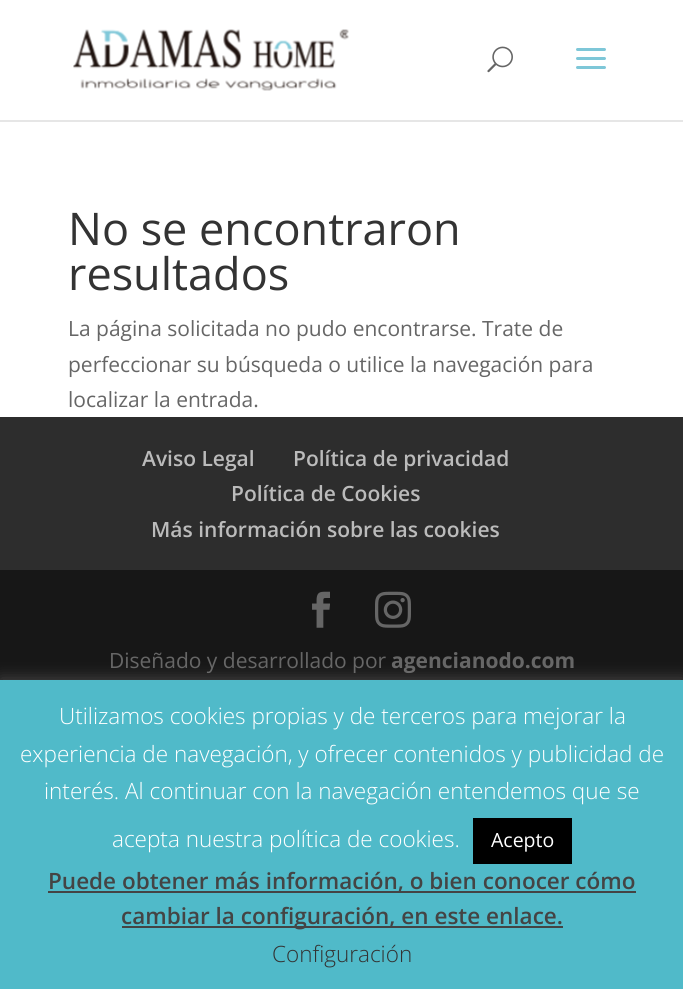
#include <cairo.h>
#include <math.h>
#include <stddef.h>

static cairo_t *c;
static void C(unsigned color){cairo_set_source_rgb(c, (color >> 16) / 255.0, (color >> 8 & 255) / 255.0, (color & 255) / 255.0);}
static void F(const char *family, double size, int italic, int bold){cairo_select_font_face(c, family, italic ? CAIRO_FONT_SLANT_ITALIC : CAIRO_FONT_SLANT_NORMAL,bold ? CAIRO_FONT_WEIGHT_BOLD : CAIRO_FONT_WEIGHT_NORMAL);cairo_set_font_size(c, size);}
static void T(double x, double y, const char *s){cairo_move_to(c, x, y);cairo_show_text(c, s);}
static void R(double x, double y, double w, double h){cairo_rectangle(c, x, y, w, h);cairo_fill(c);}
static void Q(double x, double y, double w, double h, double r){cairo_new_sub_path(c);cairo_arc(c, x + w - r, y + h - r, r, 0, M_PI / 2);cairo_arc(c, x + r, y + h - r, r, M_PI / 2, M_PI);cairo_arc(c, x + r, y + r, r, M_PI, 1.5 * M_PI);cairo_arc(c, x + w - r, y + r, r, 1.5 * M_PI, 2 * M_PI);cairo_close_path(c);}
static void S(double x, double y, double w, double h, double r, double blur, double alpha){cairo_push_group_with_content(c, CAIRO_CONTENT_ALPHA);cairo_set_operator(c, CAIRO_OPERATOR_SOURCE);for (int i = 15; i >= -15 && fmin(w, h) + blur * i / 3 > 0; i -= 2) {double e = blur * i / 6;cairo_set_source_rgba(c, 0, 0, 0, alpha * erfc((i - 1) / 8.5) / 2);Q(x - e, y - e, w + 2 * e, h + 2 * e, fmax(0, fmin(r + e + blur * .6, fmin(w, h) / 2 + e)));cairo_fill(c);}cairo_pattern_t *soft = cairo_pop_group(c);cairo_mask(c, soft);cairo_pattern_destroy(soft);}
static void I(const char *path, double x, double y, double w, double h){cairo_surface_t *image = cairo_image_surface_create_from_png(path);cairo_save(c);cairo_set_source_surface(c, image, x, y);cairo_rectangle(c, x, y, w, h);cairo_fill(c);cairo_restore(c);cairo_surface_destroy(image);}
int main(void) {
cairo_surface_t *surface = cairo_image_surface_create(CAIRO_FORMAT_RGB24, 683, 989);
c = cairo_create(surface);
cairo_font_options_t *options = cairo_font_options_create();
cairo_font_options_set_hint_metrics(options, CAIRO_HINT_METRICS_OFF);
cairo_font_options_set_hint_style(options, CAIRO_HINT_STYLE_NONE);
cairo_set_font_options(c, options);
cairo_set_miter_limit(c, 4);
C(0xffffff);
cairo_paint(c);
C(0xe6e6e6);
R(0,120,683,2);
I("1.png",73,29,276,62);
I("2.png",487,46,26,27);
I("3.png",576,48,30,21);
F("Open Sans",45,0,0);
C(0x333333);
T(68,245,"No se encontraron");
T(68,290,"resultados");
F("Open Sans",21,0,0);
C(0x666666);
T(68,336,"La página solicitada no pudo encontrarse. Trate de");
T(68,372,"perfeccionar su búsqueda o utilice la navegación para");
T(68,407,"localizar la entrada.");
C(0x2d2d2d);
R(0,417,683,153);
F("Open Sans SemiBold",21,0,0);
C(0xbbbbbb);
T(142,466,"Aviso Legal");
T(293,466,"Política de privacidad");
T(231,501,"Política de Cookies");
T(151,537,"Más información sobre las cookies");
C(0x171717);
R(0,570,683,110);
I("4.png",312,591,18,37);
I("5.png",375,591,36,37);
F("Open Sans",21,0,0);
C(0x666666);
T(109,668,"Diseñado y desarrollado por");
F("Open Sans",21,0,1);
T(391,668,"agencianodo.com");
C(0xacabab);
S(0,678,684,311,0,7.5,.3);
C(0x50bac9);
R(0,680,683,309);
F("Open Sans Light",22.5,0,0);
C(0xffffff);
T(59,724,"Utilizamos cookies propias y de terceros para mejorar la");
T(20,762,"experiencia de navegación, y ofrecer contenidos y publicidad de");
T(44,799,"interés. Al continuar con la navegación entendemos que se");
T(112,847,"acepta nuestra política de cookies.");
C(0x000000);
R(473,818,99,46);
F("Open Sans",19.5,0,0);
C(0xffffff);
T(491,847,"Acepto");
C(0x444444);
R(48,891,588,2);
F("Open Sans SemiBold",22.5,0,0);
T(48,889,"Puede obtener más información, o bien conocer cómo");
R(122,926,441,2);
T(121,924,"cambiar la configuración, en este enlace.");
F("Open Sans Light",22.5,0,0);
C(0x333333);
T(272,962,"Configuración");
cairo_surface_write_to_png(surface, "o.png");
cairo_font_options_destroy(options);
cairo_destroy(c);
cairo_surface_destroy(surface);
return 0;
}
